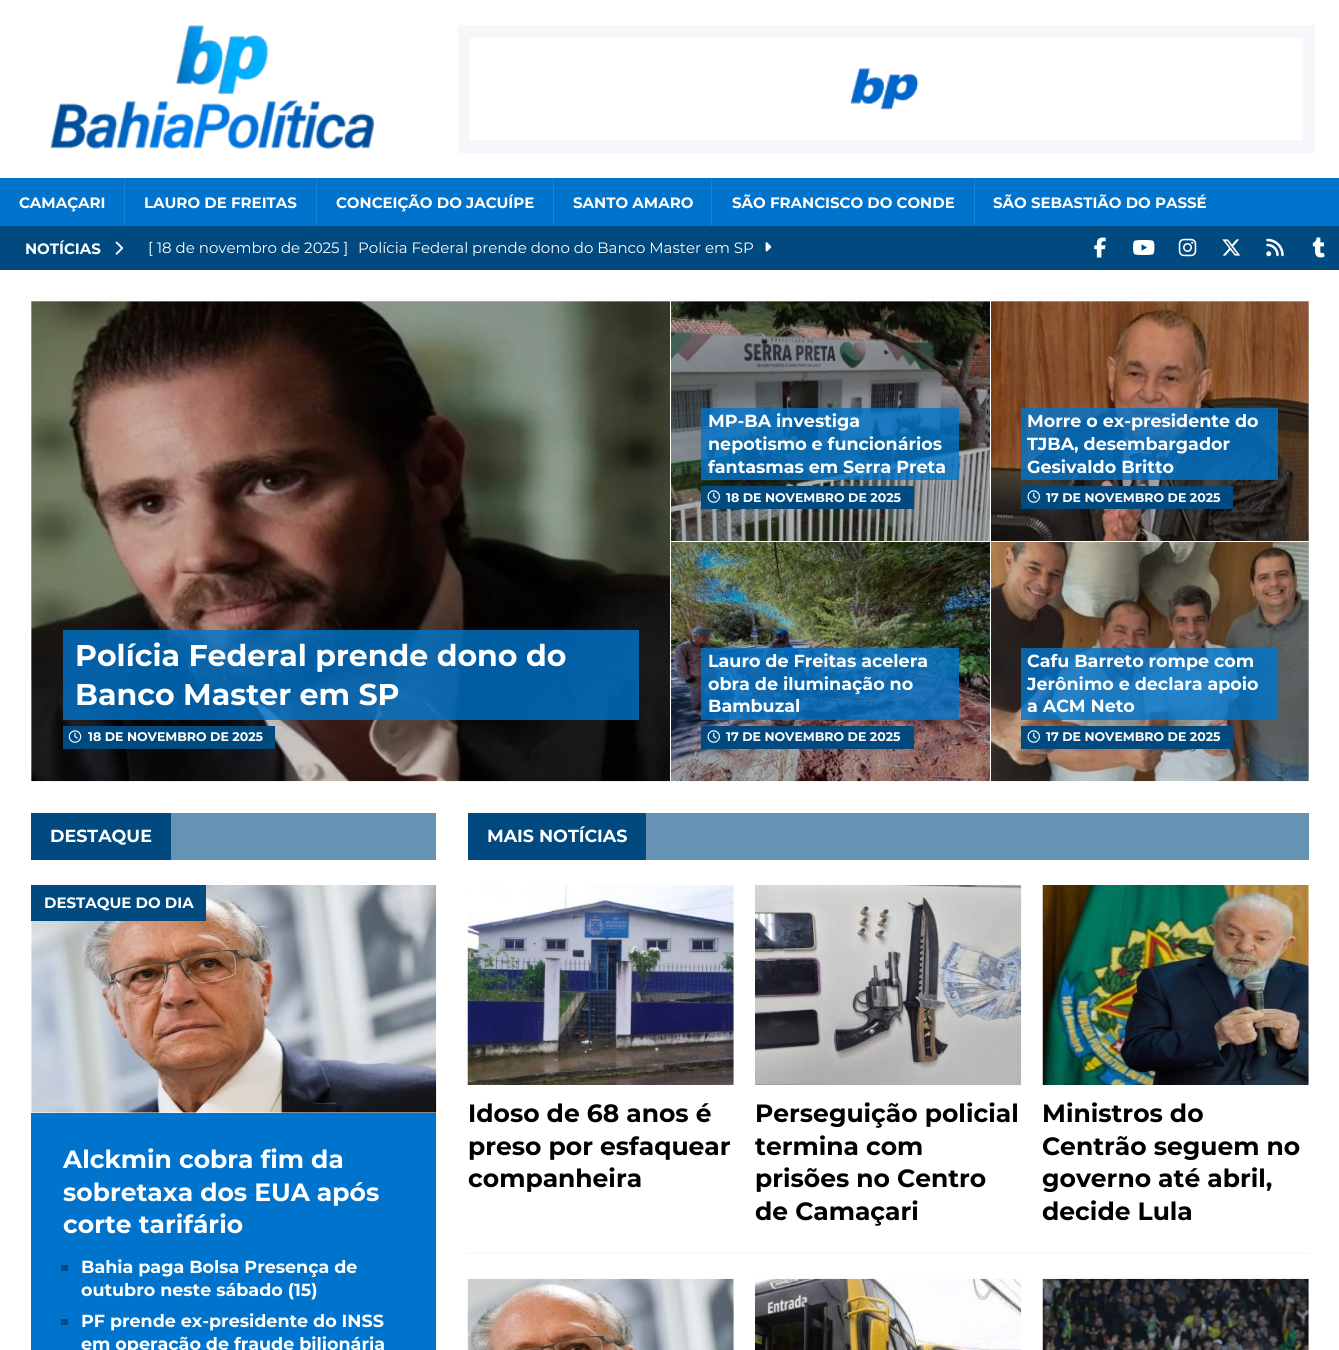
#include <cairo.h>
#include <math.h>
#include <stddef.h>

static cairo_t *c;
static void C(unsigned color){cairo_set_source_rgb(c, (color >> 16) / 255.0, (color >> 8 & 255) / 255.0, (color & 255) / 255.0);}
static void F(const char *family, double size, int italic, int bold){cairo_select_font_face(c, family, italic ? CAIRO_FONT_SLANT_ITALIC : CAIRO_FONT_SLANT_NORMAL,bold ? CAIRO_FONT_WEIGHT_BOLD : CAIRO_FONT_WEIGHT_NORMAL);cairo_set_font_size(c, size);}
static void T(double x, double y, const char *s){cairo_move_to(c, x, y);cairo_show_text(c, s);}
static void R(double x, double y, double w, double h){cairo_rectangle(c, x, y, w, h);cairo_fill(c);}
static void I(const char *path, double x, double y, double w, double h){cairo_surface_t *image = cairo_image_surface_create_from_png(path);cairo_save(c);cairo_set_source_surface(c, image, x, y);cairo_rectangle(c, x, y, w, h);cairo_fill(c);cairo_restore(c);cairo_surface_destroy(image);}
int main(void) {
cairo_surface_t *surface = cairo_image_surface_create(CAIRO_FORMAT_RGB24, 1339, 1350);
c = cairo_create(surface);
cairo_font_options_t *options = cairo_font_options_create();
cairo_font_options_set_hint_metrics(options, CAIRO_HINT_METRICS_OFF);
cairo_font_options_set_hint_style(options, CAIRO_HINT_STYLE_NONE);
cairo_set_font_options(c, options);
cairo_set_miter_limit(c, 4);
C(0xffffff);
cairo_paint(c);
I("1.png",50,25,325,124);
C(0xf5f7fa);
R(458,25,857,128);
I("2.png",470,37,833,103);
C(0x0074cc);
R(0,178,1339,48);
F("Montserrat",15,0,1);
C(0xffffff);
T(19,208,"CAMAÇARI");
C(0x1a82d1);
R(124,178,1,48);
C(0xffffff);
T(144,208,"LAURO DE FREITAS");
C(0x1a82d1);
R(316,178,1,48);
C(0xffffff);
T(336,208,"CONCEIÇÃO DO JACUÍPE");
C(0x1a82d1);
R(553,178,1,48);
C(0xffffff);
T(573,208,"SANTO AMARO");
C(0x1a82d1);
R(711,178,1,48);
C(0xffffff);
T(732,208,"SÃO FRANCISCO DO CONDE");
C(0x1a82d1);
R(974,178,1,48);
C(0xffffff);
T(993,208,"SÃO SEBASTIÃO DO PASSÉ");
C(0x004a80);
R(0,226,1339,44);
C(0xffffff);
T(25,254,"NOTÍCIAS");
I("3.png",115,241,9,14);
F("Montserrat",15,0,0);
T(148,253,"[ 18 de novembro de 2025 ]");
T(358,253,"Polícia Federal prende dono do Banco Master em SP");
I("4.png",765,242,7,10);
I("5.png",1094,237,12,21);
I("6.png",1133,240,22,15);
I("7.png",1178,238,19,19);
I("8.png",1222,239,19,17);
I("9.png",1266,238,18,19);
I("10.png",1312,237,13,21);
C(0xcccccc);
R(991,301,318,240);
R(671,301,319,1);
R(31,301,639,480);
I("11.png",31,301,639,481);
cairo_set_source_rgba(c,0,0.455,0.8,0.8);
R(63,630,576,90);
F("Montserrat",30,0,1);
C(0xffffff);
T(75,666,"Polícia Federal prende dono do");
T(75,705,"Banco Master em SP");
C(0x004a80);
R(63,726,212,23);
I("12.png",68,730,14,13);
F("Montserrat",12.5,0,1);
C(0xffffff);
T(88,741,"18 DE NOVEMBRO DE 2025");
I("13.png",671,301,319,240);
cairo_set_source_rgba(c,0,0.455,0.8,0.8);
R(701,408,258,72);
F("Montserrat",17.5,0,1);
C(0xffffff);
T(708,427,"MP-BA investiga");
T(708,450,"nepotismo e funcionários");
T(708,473,"fantasmas em Serra Preta");
C(0x004a80);
R(701,486,213,23);
I("14.png",707,490,13,13);
F("Montserrat",12.5,0,1);
C(0xffffff);
T(726,502,"18 DE NOVEMBRO DE 2025");
I("15.png",991,301,318,240);
cairo_set_source_rgba(c,0,0.455,0.8,0.8);
R(1021,408,257,72);
F("Montserrat",17.5,0,1);
C(0xffffff);
T(1027,427,"Morre o ex-presidente do");
T(1027,450,"TJBA, desembargador");
T(1027,473,"Gesivaldo Britto");
C(0x004a80);
R(1021,486,212,23);
I("14.png",1027,490,13,13);
F("Montserrat",12.5,0,1);
C(0xffffff);
T(1046,502,"17 DE NOVEMBRO DE 2025");
I("16.png",670,542,320,240);
cairo_set_source_rgba(c,0,0,0,0.2);
R(671,542,319,239);
C(0xffffff);
R(670,541,1,240);
cairo_set_source_rgba(c,0,0.455,0.8,0.8);
R(701,648,258,72);
F("Montserrat",17.5,0,1);
C(0xffffff);
T(708,667,"Lauro de Freitas acelera");
T(708,690,"obra de iluminação no");
T(708,712,"Bambuzal");
C(0x004a80);
R(701,726,213,23);
I("14.png",707,730,13,13);
F("Montserrat",12.5,0,1);
C(0xffffff);
T(726,741,"17 DE NOVEMBRO DE 2025");
I("17.png",990,542,319,240);
cairo_set_source_rgba(c,0,0,0,0.2);
R(991,542,318,239);
C(0xffffff);
R(990,541,1,240);
cairo_set_source_rgba(c,0,0.455,0.8,0.8);
R(1021,648,257,72);
F("Montserrat",17.5,0,1);
C(0xffffff);
T(1027,667,"Cafu Barreto rompe com");
T(1027,690,"Jerônimo e declara apoio");
T(1027,712,"a ACM Neto");
C(0x004a80);
R(1021,726,212,23);
I("14.png",1027,730,13,13);
F("Montserrat",12.5,0,1);
C(0xffffff);
T(1046,741,"17 DE NOVEMBRO DE 2025");
C(0x6692b3);
R(171,813,265,47);
C(0x004a80);
R(31,813,140,47);
F("Montserrat",17.5,0,1);
C(0xffffff);
T(50,842,"DESTAQUE");
I("18.png",31,885,406,228);
C(0x004a80);
R(31,885,175,36);
F("Montserrat",15,0,1);
C(0xffffff);
T(44,908,"DESTAQUE DO DIA");
C(0x0074cc);
R(31,1113,405,237);
F("Montserrat",25,0,1);
C(0xffffff);
T(63,1168,"Alckmin cobra fim da");
T(63,1201,"sobretaxa dos EUA após");
T(63,1233,"corte tarifário");
C(0x004a80);
R(61,1265,7,6);
F("Montserrat",17.5,0,1);
C(0xffffff);
T(81,1273,"Bahia paga Bolsa Presença de");
T(81,1296,"outubro neste sábado (15)");
C(0x004a80);
R(61,1319,7,6);
C(0xffffff);
T(81,1327,"PF prende ex-presidente do INSS");
T(81,1350,"em operação de fraude bilionária");
C(0x6692b3);
R(646,813,663,47);
C(0x004a80);
R(468,813,178,47);
C(0xffffff);
T(487,842,"MAIS NOTÍCIAS");
cairo_new_path(c);
cairo_move_to(c,467.5,1253);
cairo_line_to(c,1309,1253);
C(0xebebeb);
cairo_set_line_width(c,1.2);
cairo_set_dash(c,(double[]){1.25,1.25},2,0);
cairo_stroke(c);
I("19.png",467,885,267,200);
F("Montserrat",25,0,1);
C(0x000000);
T(468,1122,"Idoso de 68 anos é");
T(468,1155,"preso por esfaquear");
T(468,1187,"companheira");
I("20.png",755,885,267,200);
T(755,1122,"Perseguição policial");
T(755,1155,"termina com");
T(755,1187,"prisões no Centro");
T(755,1220,"de Camaçari");
I("21.png",1042,885,267,200);
T(1042,1122,"Ministros do");
T(1042,1155,"Centrão seguem no");
T(1042,1187,"governo até abril,");
T(1042,1220,"decide Lula");
I("22.png",467,1278,267,72);
I("23.png",755,1278,267,72);
I("24.png",1042,1278,267,72);
cairo_surface_write_to_png(surface, "o.png");
cairo_font_options_destroy(options);
cairo_destroy(c);
cairo_surface_destroy(surface);
return 0;
}
